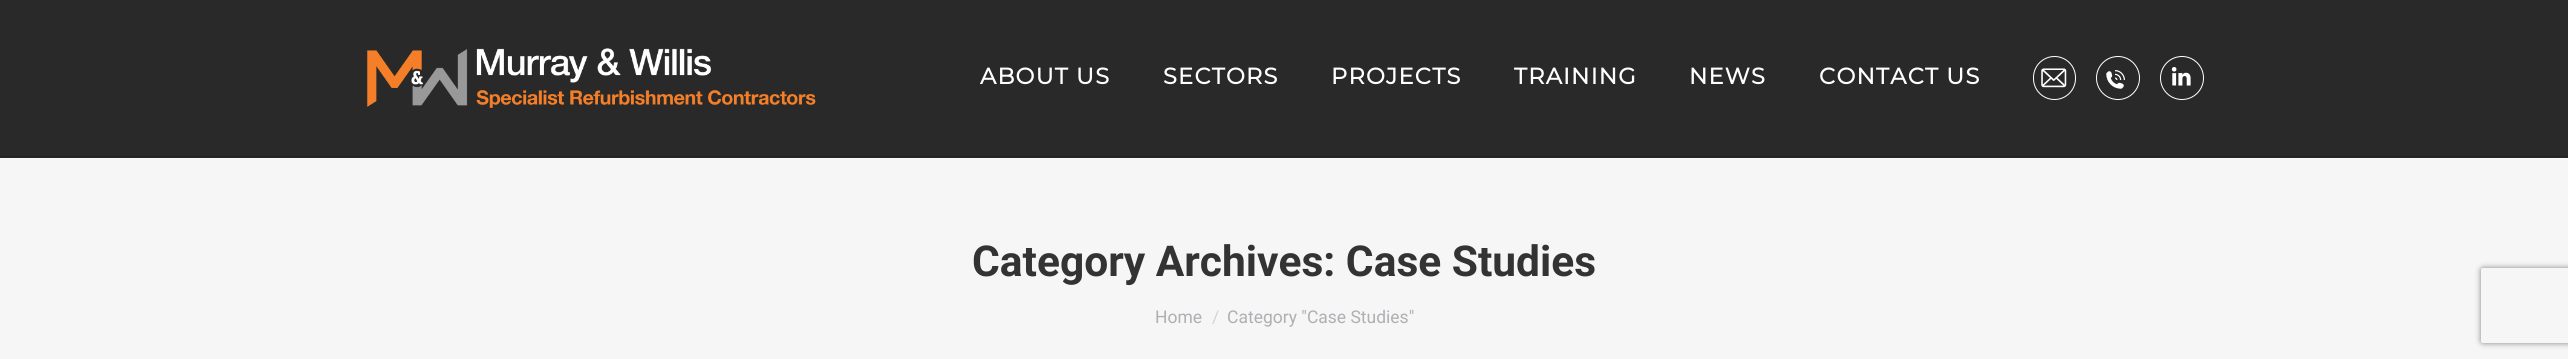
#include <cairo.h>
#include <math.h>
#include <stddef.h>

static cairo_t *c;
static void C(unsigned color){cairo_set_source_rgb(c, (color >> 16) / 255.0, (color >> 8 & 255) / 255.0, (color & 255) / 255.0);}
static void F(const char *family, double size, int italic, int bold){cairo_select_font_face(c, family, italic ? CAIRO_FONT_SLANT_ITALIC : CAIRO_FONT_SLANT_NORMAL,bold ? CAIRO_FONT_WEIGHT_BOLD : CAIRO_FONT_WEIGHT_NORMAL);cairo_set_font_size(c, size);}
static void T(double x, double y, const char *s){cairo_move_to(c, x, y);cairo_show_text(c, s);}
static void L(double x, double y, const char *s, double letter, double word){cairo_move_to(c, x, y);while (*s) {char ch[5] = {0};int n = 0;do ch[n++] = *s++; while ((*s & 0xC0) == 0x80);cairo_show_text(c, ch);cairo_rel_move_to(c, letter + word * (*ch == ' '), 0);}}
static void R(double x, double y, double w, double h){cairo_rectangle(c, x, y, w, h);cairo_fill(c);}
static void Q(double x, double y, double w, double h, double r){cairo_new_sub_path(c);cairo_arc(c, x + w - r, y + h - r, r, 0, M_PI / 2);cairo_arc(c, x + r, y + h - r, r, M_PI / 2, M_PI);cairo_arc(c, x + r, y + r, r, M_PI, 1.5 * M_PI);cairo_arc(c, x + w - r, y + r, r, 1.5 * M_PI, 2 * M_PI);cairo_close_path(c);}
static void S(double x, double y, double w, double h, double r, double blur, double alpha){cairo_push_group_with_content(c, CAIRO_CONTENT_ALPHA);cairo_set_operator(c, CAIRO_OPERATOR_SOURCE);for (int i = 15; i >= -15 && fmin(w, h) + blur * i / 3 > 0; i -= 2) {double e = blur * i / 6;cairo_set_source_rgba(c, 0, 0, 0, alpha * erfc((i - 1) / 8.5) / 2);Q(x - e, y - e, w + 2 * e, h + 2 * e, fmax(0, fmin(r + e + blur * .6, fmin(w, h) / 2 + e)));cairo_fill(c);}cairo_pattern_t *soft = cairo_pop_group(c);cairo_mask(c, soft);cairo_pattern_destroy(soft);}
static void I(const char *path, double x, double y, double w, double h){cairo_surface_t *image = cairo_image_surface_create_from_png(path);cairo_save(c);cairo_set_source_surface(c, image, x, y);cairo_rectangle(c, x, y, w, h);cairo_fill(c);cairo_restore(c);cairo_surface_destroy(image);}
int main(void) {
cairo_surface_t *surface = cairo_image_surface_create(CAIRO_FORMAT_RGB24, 2568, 359);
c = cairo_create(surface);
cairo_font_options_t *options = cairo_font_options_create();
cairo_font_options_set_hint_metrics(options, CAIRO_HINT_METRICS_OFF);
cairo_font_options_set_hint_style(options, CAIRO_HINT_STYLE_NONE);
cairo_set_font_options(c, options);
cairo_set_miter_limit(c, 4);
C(0xf6f6f6);
cairo_paint(c);
C(0x292929);
R(0,0,2568,158);
C(0x222222);
R(0,156,2568,1);
I("1.png",367,48,449,60);
F("Montserrat",22.5,0,1);
C(0xffffff);
L(980,84,"ABOUT US",1.25,0);
L(1163,84,"SECTORS",1.25,0);
L(1331,84,"PROJECTS",1.25,0);
L(1514,84,"TRAINING",1.25,0);
L(1689,84,"NEWS",1.25,0);
L(1819,84,"CONTACT US",1.25,0);
Q(2033.5,56.5,42,43,21);
cairo_set_line_width(c,1);
cairo_stroke(c);
I("2.png",2041,68,26,20);
cairo_arc(c,2118,78,21.5,0,2 * M_PI);
cairo_stroke(c);
I("3.png",2106,70,19,19);
cairo_arc(c,2182,78,21.5,0,2 * M_PI);
cairo_stroke(c);
I("4.png",2171,67,20,19);
F("Roboto",42.5,0,1);
C(0x333333);
T(972,276,"Category Archives: Case Studies");
F("Roboto",17.5,0,0);
C(0xadafb3);
T(1155,323,"Home");
C(0xd2d3d5);
T(1212,323,"/");
C(0xadafb3);
T(1227,323,"Category \"Case Studies\"");
cairo_save(c);
cairo_set_fill_rule(c,CAIRO_FILL_RULE_EVEN_ODD);
cairo_new_path(c);
cairo_move_to(c,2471,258);
cairo_line_to(c,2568,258);
cairo_line_to(c,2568,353);
cairo_line_to(c,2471,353);
cairo_close_path(c);
cairo_move_to(c,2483.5,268);
cairo_line_to(c,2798.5,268);
cairo_curve_to(c,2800,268,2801,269,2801,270.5);
cairo_line_to(c,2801,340.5);
cairo_curve_to(c,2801,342,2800,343,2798.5,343);
cairo_line_to(c,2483.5,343);
cairo_curve_to(c,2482,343,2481,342,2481,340.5);
cairo_line_to(c,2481,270.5);
cairo_curve_to(c,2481,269,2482,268,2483.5,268);
cairo_close_path(c);
cairo_clip(c);
C(0x808080);
S(2481,268,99,75,2.5,3,1);
cairo_restore(c);
cairo_surface_write_to_png(surface, "o.png");
cairo_font_options_destroy(options);
cairo_destroy(c);
cairo_surface_destroy(surface);
return 0;
}
